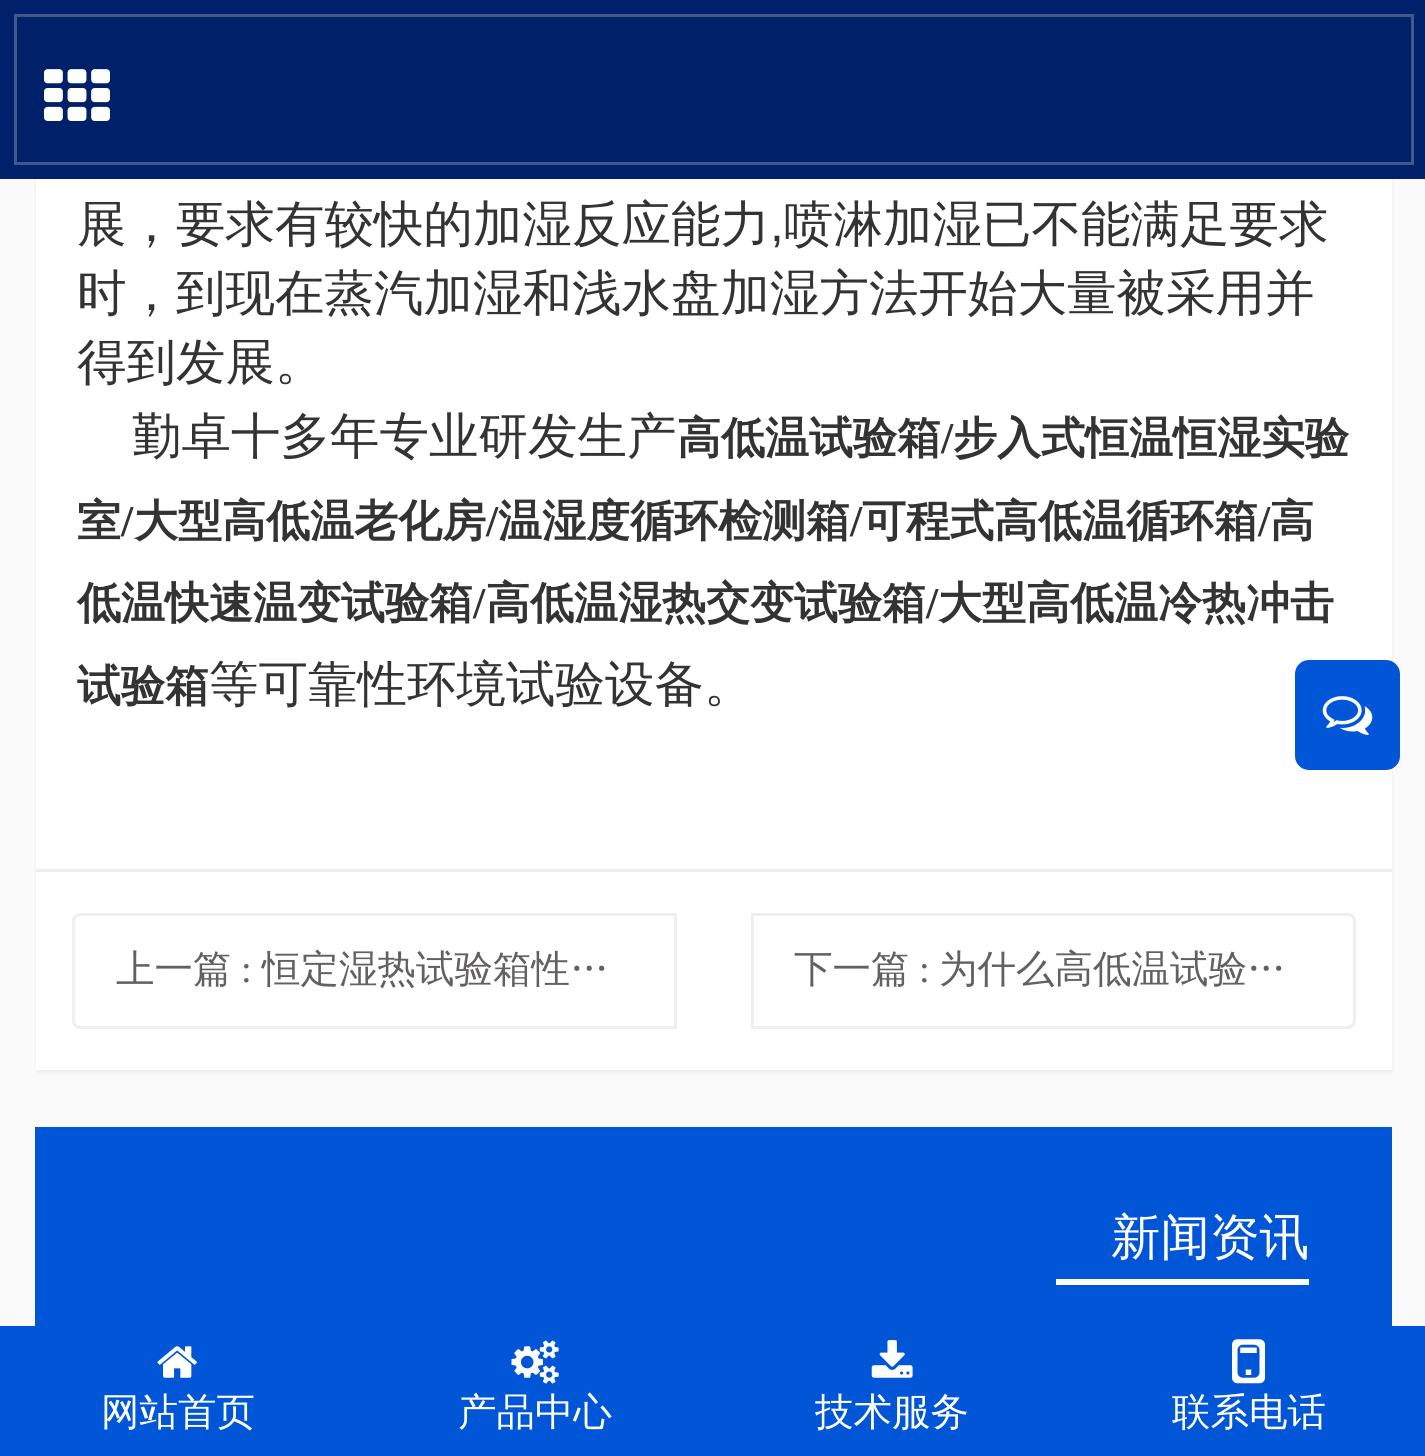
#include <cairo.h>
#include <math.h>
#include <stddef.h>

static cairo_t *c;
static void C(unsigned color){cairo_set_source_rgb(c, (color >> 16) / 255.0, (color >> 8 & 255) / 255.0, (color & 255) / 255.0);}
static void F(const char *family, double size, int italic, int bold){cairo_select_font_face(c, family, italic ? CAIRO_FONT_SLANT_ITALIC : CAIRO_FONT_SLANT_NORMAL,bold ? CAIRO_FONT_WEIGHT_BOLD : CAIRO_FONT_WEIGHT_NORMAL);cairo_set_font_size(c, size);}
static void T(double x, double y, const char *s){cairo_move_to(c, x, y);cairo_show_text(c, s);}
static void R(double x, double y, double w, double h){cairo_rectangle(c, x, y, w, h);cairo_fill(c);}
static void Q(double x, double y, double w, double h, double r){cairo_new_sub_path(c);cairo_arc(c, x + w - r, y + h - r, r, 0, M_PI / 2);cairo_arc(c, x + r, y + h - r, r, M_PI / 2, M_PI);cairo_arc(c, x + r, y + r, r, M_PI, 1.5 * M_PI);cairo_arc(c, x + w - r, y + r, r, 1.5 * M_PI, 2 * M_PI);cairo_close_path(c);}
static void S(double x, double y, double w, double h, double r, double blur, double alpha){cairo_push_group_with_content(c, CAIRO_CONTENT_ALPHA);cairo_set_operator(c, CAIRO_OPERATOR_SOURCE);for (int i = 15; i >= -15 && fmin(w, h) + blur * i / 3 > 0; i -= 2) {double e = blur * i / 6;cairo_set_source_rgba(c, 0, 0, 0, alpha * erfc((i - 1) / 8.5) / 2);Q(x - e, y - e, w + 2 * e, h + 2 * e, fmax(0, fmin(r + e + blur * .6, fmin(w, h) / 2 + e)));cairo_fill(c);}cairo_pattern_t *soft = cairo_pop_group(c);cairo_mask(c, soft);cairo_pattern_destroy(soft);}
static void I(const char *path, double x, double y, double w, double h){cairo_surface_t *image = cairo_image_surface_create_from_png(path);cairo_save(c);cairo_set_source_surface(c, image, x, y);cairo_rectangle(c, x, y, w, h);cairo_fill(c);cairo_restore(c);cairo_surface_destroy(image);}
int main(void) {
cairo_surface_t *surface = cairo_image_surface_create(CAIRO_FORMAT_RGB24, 1425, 1456);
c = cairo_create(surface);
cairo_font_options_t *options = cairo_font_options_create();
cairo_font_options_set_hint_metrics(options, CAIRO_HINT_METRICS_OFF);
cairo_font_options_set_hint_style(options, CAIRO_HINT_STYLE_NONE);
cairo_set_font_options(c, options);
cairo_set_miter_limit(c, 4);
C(0xfafafa);
cairo_paint(c);
C(0x000000);
S(36,-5,1356,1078,0,1.5,.05);
C(0x002069);
R(0,0,1425,179);
cairo_rectangle(c,15.5,15.5,1397,148);
C(0x40588f);
cairo_set_line_width(c,3);
cairo_stroke(c);
I("1.png",44,69,66,52);
C(0xffffff);
R(36,179,1356,891);
F("WenQuanYi Zen Hei Medium",49.5,0,0);
C(0x333333);
T(77,241,"展，要求有较快的加湿反应能力");
F("Liberation Sans",49.5,0,0);
T(770,241,",");
F("WenQuanYi Zen Hei Medium",49.5,0,0);
T(784,241,"喷淋加湿已不能满足要求");
T(77,310,"时，到现在蒸汽加湿和浅水盘加湿方法开始大量被采用并");
T(77,379,"得到发展。");
T(132,453,"勤卓十多年专业研发生产");
F("WenQuanYi Zen Hei",44,0,1);
T(677,453,"高低温试验箱");
F("Liberation Serif",44,0,1);
T(941,453,"/");
F("WenQuanYi Zen Hei",44,0,1);
T(953,453,"步入式恒温恒湿实验");
T(77,536,"室");
F("Liberation Serif",44,0,1);
T(121,536,"/");
F("WenQuanYi Zen Hei",44,0,1);
T(134,536,"大型高低温老化房");
F("Liberation Serif",44,0,1);
T(486,536,"/");
F("WenQuanYi Zen Hei",44,0,1);
T(498,536,"温湿度循环检测箱");
F("Liberation Serif",44,0,1);
T(850,536,"/");
F("WenQuanYi Zen Hei",44,0,1);
T(862,536,"可程式高低温循环箱");
F("Liberation Serif",44,0,1);
T(1258,536,"/");
F("WenQuanYi Zen Hei",44,0,1);
T(1270,536,"高");
T(77,618,"低温快速温变试验箱");
F("Liberation Serif",44,0,1);
T(473,618,"/");
F("WenQuanYi Zen Hei",44,0,1);
T(486,618,"高低温湿热交变试验箱");
F("Liberation Serif",44,0,1);
T(926,618,"/");
F("WenQuanYi Zen Hei",44,0,1);
T(938,618,"大型高低温冷热冲击");
T(77,701,"试验箱");
F("WenQuanYi Zen Hei Medium",49.5,0,0);
T(209,701,"等可靠性环境试验设备。");
C(0xeeeeee);
R(36,869,1356,3);
cairo_new_path(c);
cairo_move_to(c,80,914.5);
cairo_line_to(c,675.5,914.5);
cairo_line_to(c,675.5,1027.5);
cairo_line_to(c,80,1027.5);
cairo_curve_to(c,76.5,1027.5,73.5,1024.5,73.5,1021);
cairo_line_to(c,73.5,921);
cairo_curve_to(c,73.5,917.5,76.5,914.5,80,914.5);
cairo_close_path(c);
cairo_stroke(c);
F("WenQuanYi Zen Hei Medium",38.5,0,0);
C(0x636060);
T(116,982,"上一篇");
F("Liberation Serif",38.5,0,0);
T(241,982,":");
F("WenQuanYi Zen Hei Medium",38.5,0,0);
T(262,982,"恒定湿热试验箱性…");
cairo_new_path(c);
cairo_move_to(c,752.5,914.5);
cairo_line_to(c,1348,914.5);
cairo_curve_to(c,1351.5,914.5,1354.5,917.5,1354.5,921);
cairo_line_to(c,1354.5,1021);
cairo_curve_to(c,1354.5,1024.5,1351.5,1027.5,1348,1027.5);
cairo_line_to(c,752.5,1027.5);
cairo_close_path(c);
C(0xeeeeee);
cairo_stroke(c);
C(0x636060);
T(794,982,"下一篇");
F("Liberation Serif",38.5,0,0);
T(919,982,":");
F("WenQuanYi Zen Hei Medium",38.5,0,0);
T(939,982,"为什么高低温试验…");
C(0x0156d7);
R(35,1127,1357,199);
F("WenQuanYi Zen Hei Medium",49.5,0,0);
C(0xffffff);
T(1111,1254,"新闻资讯");
R(1056,1279,253,6);
C(0x0056d6);
Q(1295,660,105,110,14);
cairo_fill(c);
I("2.png",1322,696,51,39);
R(0,1326,1425,130);
I("3.png",157,1346,40,32);
F("WenQuanYi Zen Hei Medium",38.5,0,0);
C(0xffffff);
T(101,1425,"网站首页");
I("4.png",511,1340,48,44);
T(458,1425,"产品中心");
I("5.png",871,1340,42,38);
T(815,1425,"技术服务");
I("6.png",1232,1339,33,45);
T(1172,1425,"联系电话");
cairo_surface_write_to_png(surface, "o.png");
cairo_font_options_destroy(options);
cairo_destroy(c);
cairo_surface_destroy(surface);
return 0;
}
